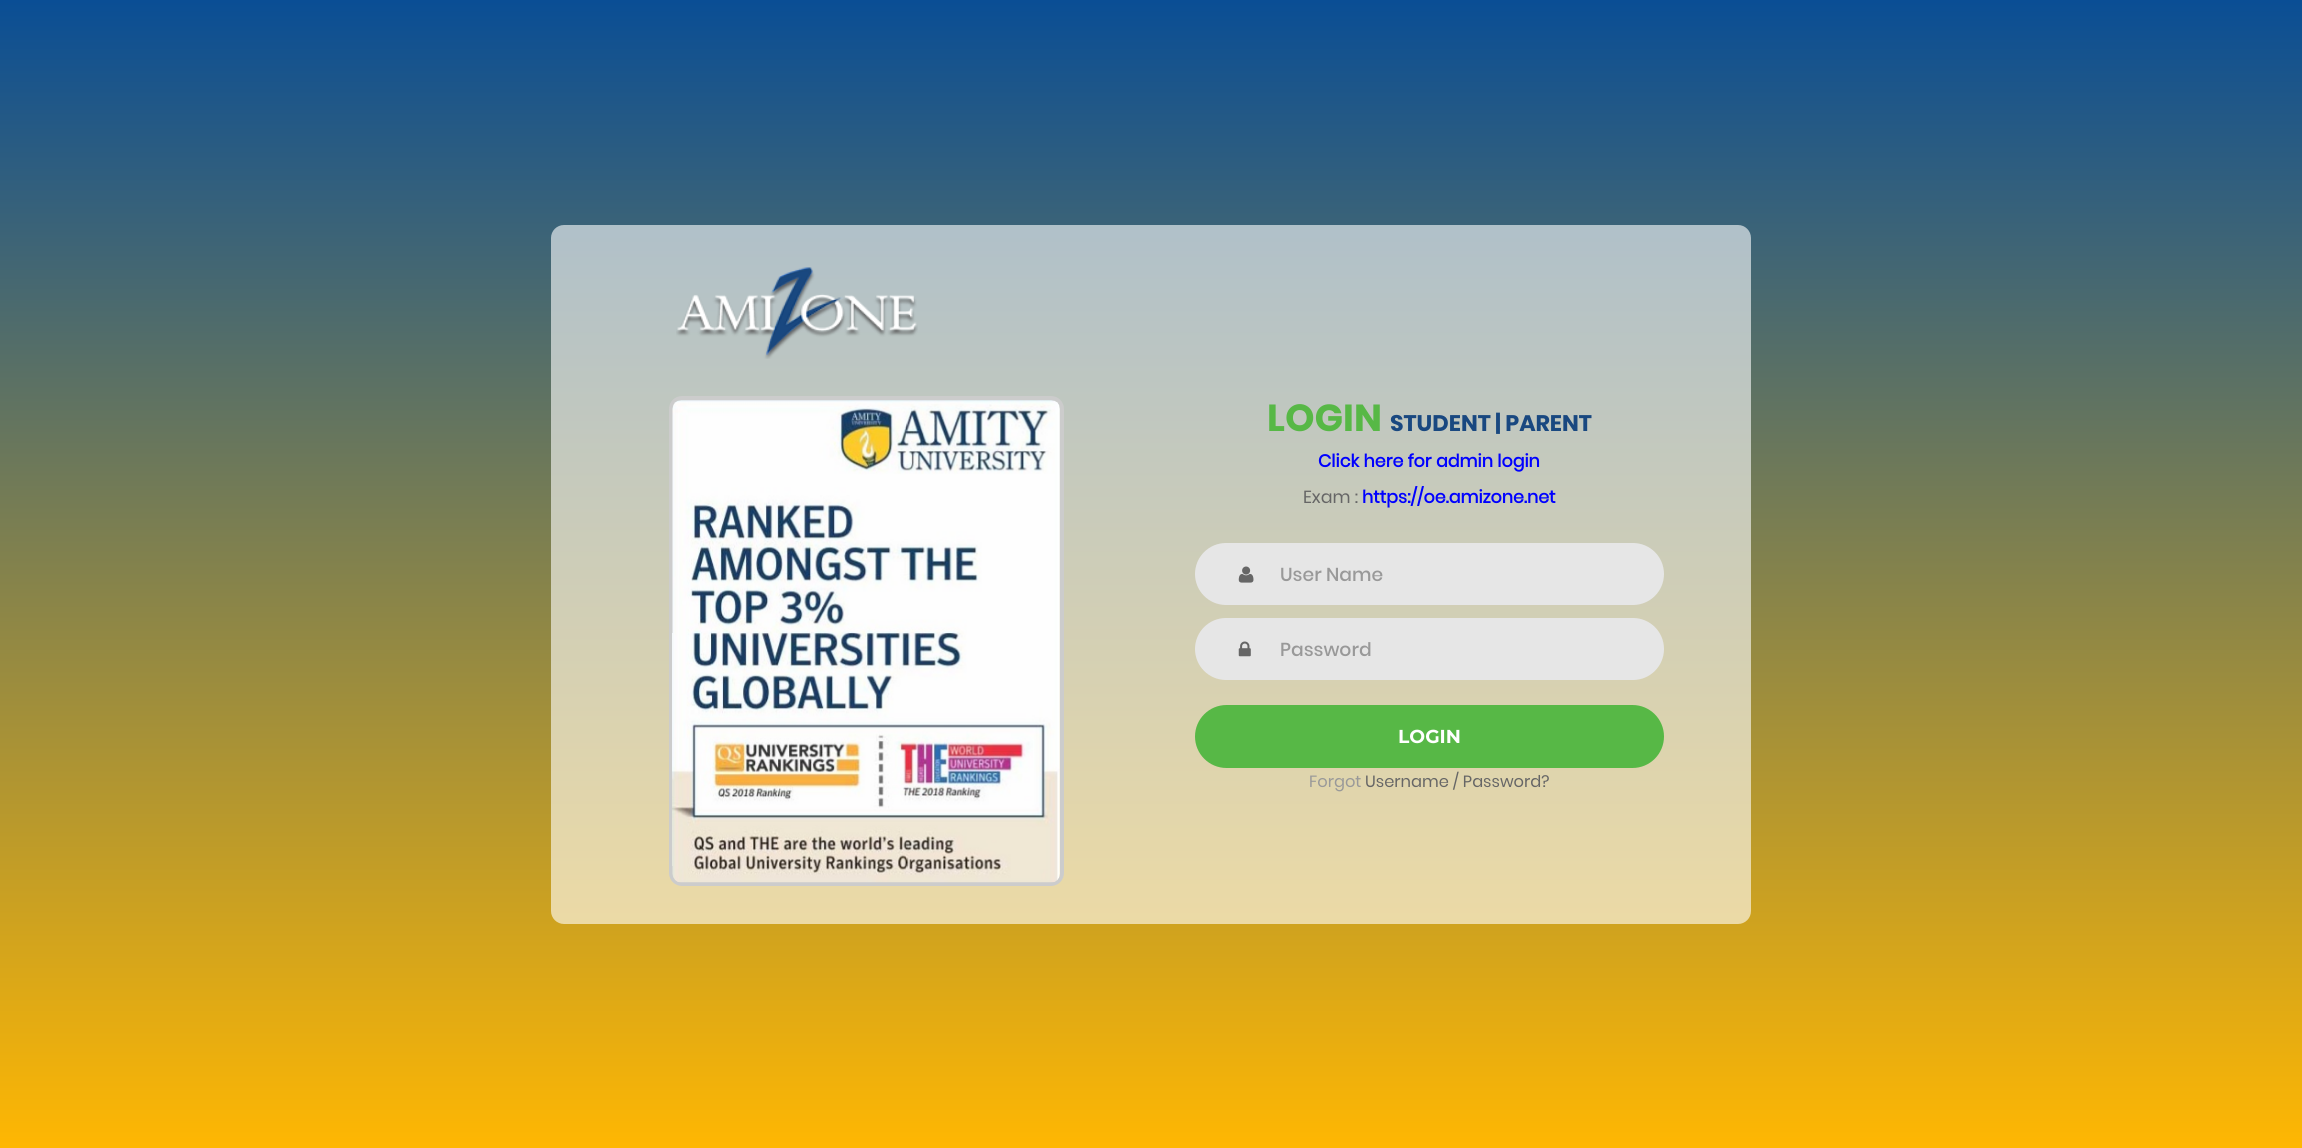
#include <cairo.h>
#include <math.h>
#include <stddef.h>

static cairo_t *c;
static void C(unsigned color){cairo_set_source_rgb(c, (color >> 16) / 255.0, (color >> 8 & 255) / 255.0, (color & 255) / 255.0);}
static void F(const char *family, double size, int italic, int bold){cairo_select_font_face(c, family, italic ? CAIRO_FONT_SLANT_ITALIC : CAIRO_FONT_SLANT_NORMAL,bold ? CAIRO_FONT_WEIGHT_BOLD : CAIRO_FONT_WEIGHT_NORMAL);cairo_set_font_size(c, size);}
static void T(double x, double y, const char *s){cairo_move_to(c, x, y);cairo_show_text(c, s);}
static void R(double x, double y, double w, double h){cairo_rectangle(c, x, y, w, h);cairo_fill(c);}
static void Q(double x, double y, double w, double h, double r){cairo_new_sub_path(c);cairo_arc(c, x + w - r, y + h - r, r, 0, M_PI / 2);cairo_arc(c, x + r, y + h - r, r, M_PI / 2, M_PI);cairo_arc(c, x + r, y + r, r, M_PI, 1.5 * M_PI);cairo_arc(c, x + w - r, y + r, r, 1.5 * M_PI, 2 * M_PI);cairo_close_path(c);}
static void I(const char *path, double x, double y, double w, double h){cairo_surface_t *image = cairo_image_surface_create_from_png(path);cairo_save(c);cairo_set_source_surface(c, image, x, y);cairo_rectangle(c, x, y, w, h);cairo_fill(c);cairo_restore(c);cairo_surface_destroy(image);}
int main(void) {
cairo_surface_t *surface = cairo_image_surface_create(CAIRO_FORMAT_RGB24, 2302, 1148);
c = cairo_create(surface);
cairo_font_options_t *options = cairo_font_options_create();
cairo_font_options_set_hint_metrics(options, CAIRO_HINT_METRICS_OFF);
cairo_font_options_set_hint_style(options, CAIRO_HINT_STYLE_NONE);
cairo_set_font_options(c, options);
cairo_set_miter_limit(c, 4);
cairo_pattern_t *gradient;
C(0xffffff);
cairo_paint(c);
gradient = cairo_pattern_create_linear(1151,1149,1151,0);
cairo_pattern_add_color_stop_rgba(gradient,0,1,0.718,0.008,1);
cairo_pattern_add_color_stop_rgba(gradient,1,0.039,0.306,0.584,1);
cairo_set_source(c,gradient);
cairo_pattern_destroy(gradient);
R(0,0,2302,1148);
cairo_set_source_rgba(c,1,1,1,0.6);
Q(551,225,1200,699,13);
cairo_fill(c);
I("1.png",676,267,242,92);
Q(671,398,391,486,11);
C(0xcccccc);
cairo_set_line_width(c,4);
cairo_stroke(c);
I("2.png",672,400,388,483);
F("Poppins",37.5,0,1);
C(0x57b846);
T(1267,431,"LOGIN");
F("Poppins",22.5,0,1);
C(0x194880);
T(1390,431,"STUDENT | PARENT");
F("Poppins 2",17.5,0,1);
C(0x0000ff);
T(1318,467,"Click here for admin login");
F("Poppins",17.5,0,0);
C(0x666666);
T(1303,503,"Exam :");
F("Poppins 2",17.5,0,1);
C(0x0000ff);
T(1362,503,"https://oe.amizone.net");
C(0xe6e6e6);
Q(1195,543,469,62,31);
cairo_fill(c);
I("3.png",1238,566,16,17);
F("Poppins Medium",18.75,0,0);
C(0x999999);
T(1280,581,"User Name");
C(0xe6e6e6);
Q(1195,618,469,62,31);
cairo_fill(c);
I("4.png",1238,641,13,16);
C(0x999999);
T(1280,656,"Password");
C(0x57b846);
Q(1195,705,469,63,31.5);
cairo_fill(c);
F("Montserrat",18.75,0,1);
C(0xffffff);
T(1398,743,"LOGIN");
F("Poppins",16.25,0,0);
C(0x999999);
T(1309,787,"Forgot");
C(0x666666);
T(1365,787,"Username / Password?");
cairo_surface_write_to_png(surface, "o.png");
cairo_font_options_destroy(options);
cairo_destroy(c);
cairo_surface_destroy(surface);
return 0;
}
